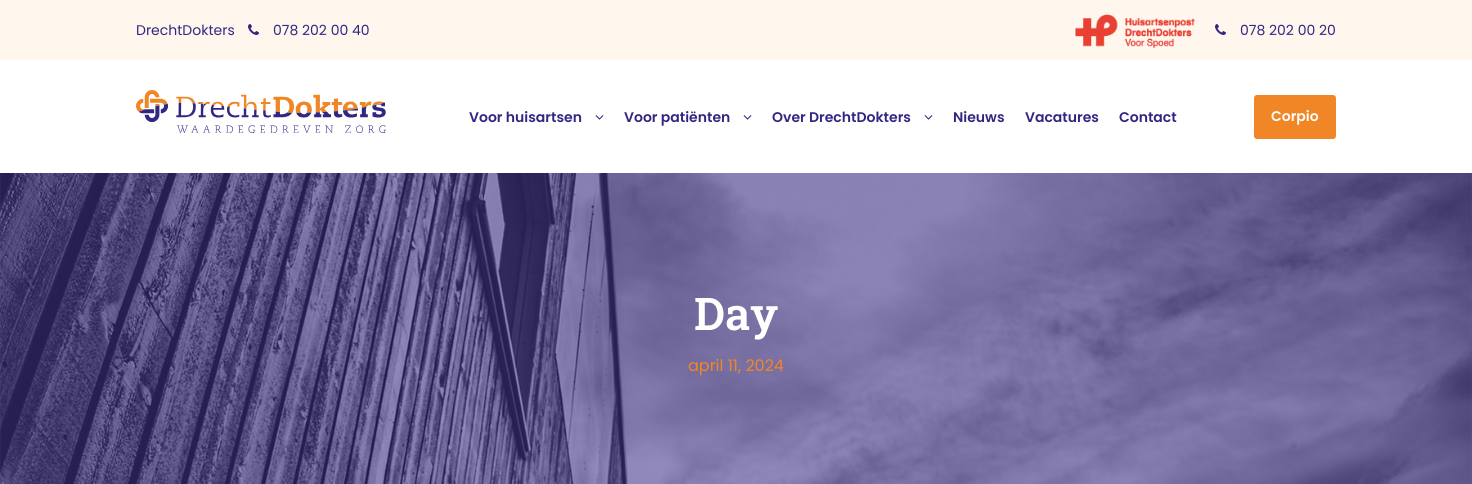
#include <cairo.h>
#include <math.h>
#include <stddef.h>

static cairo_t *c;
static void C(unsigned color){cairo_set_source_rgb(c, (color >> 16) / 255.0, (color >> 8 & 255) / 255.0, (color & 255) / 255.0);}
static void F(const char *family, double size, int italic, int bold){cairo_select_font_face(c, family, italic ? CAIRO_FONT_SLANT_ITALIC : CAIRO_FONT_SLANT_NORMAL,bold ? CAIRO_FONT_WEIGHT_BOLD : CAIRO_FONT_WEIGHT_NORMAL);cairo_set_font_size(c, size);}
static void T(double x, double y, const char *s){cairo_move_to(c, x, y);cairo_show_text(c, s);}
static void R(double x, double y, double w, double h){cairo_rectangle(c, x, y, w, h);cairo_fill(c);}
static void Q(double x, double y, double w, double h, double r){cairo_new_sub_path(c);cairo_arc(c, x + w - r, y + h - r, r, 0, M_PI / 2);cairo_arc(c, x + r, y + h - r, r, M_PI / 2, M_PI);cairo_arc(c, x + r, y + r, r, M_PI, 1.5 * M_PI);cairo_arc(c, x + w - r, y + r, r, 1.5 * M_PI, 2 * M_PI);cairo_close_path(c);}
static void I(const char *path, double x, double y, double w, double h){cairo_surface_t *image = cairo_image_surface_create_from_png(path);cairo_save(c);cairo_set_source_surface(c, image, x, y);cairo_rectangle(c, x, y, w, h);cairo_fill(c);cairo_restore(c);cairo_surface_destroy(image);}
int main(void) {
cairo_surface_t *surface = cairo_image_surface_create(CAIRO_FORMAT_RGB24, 1472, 484);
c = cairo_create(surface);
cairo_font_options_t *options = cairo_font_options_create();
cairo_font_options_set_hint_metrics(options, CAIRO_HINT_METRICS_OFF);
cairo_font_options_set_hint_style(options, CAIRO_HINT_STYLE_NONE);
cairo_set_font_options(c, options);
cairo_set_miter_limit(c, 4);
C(0xffffff);
cairo_paint(c);
C(0xfff6ee);
R(0,0,1472,60);
F("Poppins",14,0,0);
C(0x312783);
T(136,35,"DrechtDokters");
I("1.png",248,24,11,11);
T(273,35,"078 202 00 40");
I("2.png",1075,14,120,34);
I("1.png",1215,24,11,11);
T(1240,35,"078 202 00 20");
I("3.png",136,90,250,43);
F("Poppins SemiBold",14,0,0);
T(469,122,"Voor huisartsen");
I("4.png",595,115,9,5);
T(624,122,"Voor patiënten");
I("4.png",743,115,9,5);
T(772,122,"Over DrechtDokters");
I("4.png",924,115,9,5);
T(953,122,"Nieuws");
T(1025,122,"Vacatures");
T(1119,122,"Contact");
C(0xf18626);
Q(1255,96,80,42,2);
cairo_fill_preserve(c);
cairo_stroke(c);
C(0xffffff);
T(1271,121,"Corpio");
I("5.png",0,173,1472,311);
F("Roboto Slab SemiBold",45,0,0);
T(694,330,"Day");
F("Poppins",16,0,0);
C(0xf18626);
T(688,371,"april 11, 2024");
cairo_surface_write_to_png(surface, "o.png");
cairo_font_options_destroy(options);
cairo_destroy(c);
cairo_surface_destroy(surface);
return 0;
}
